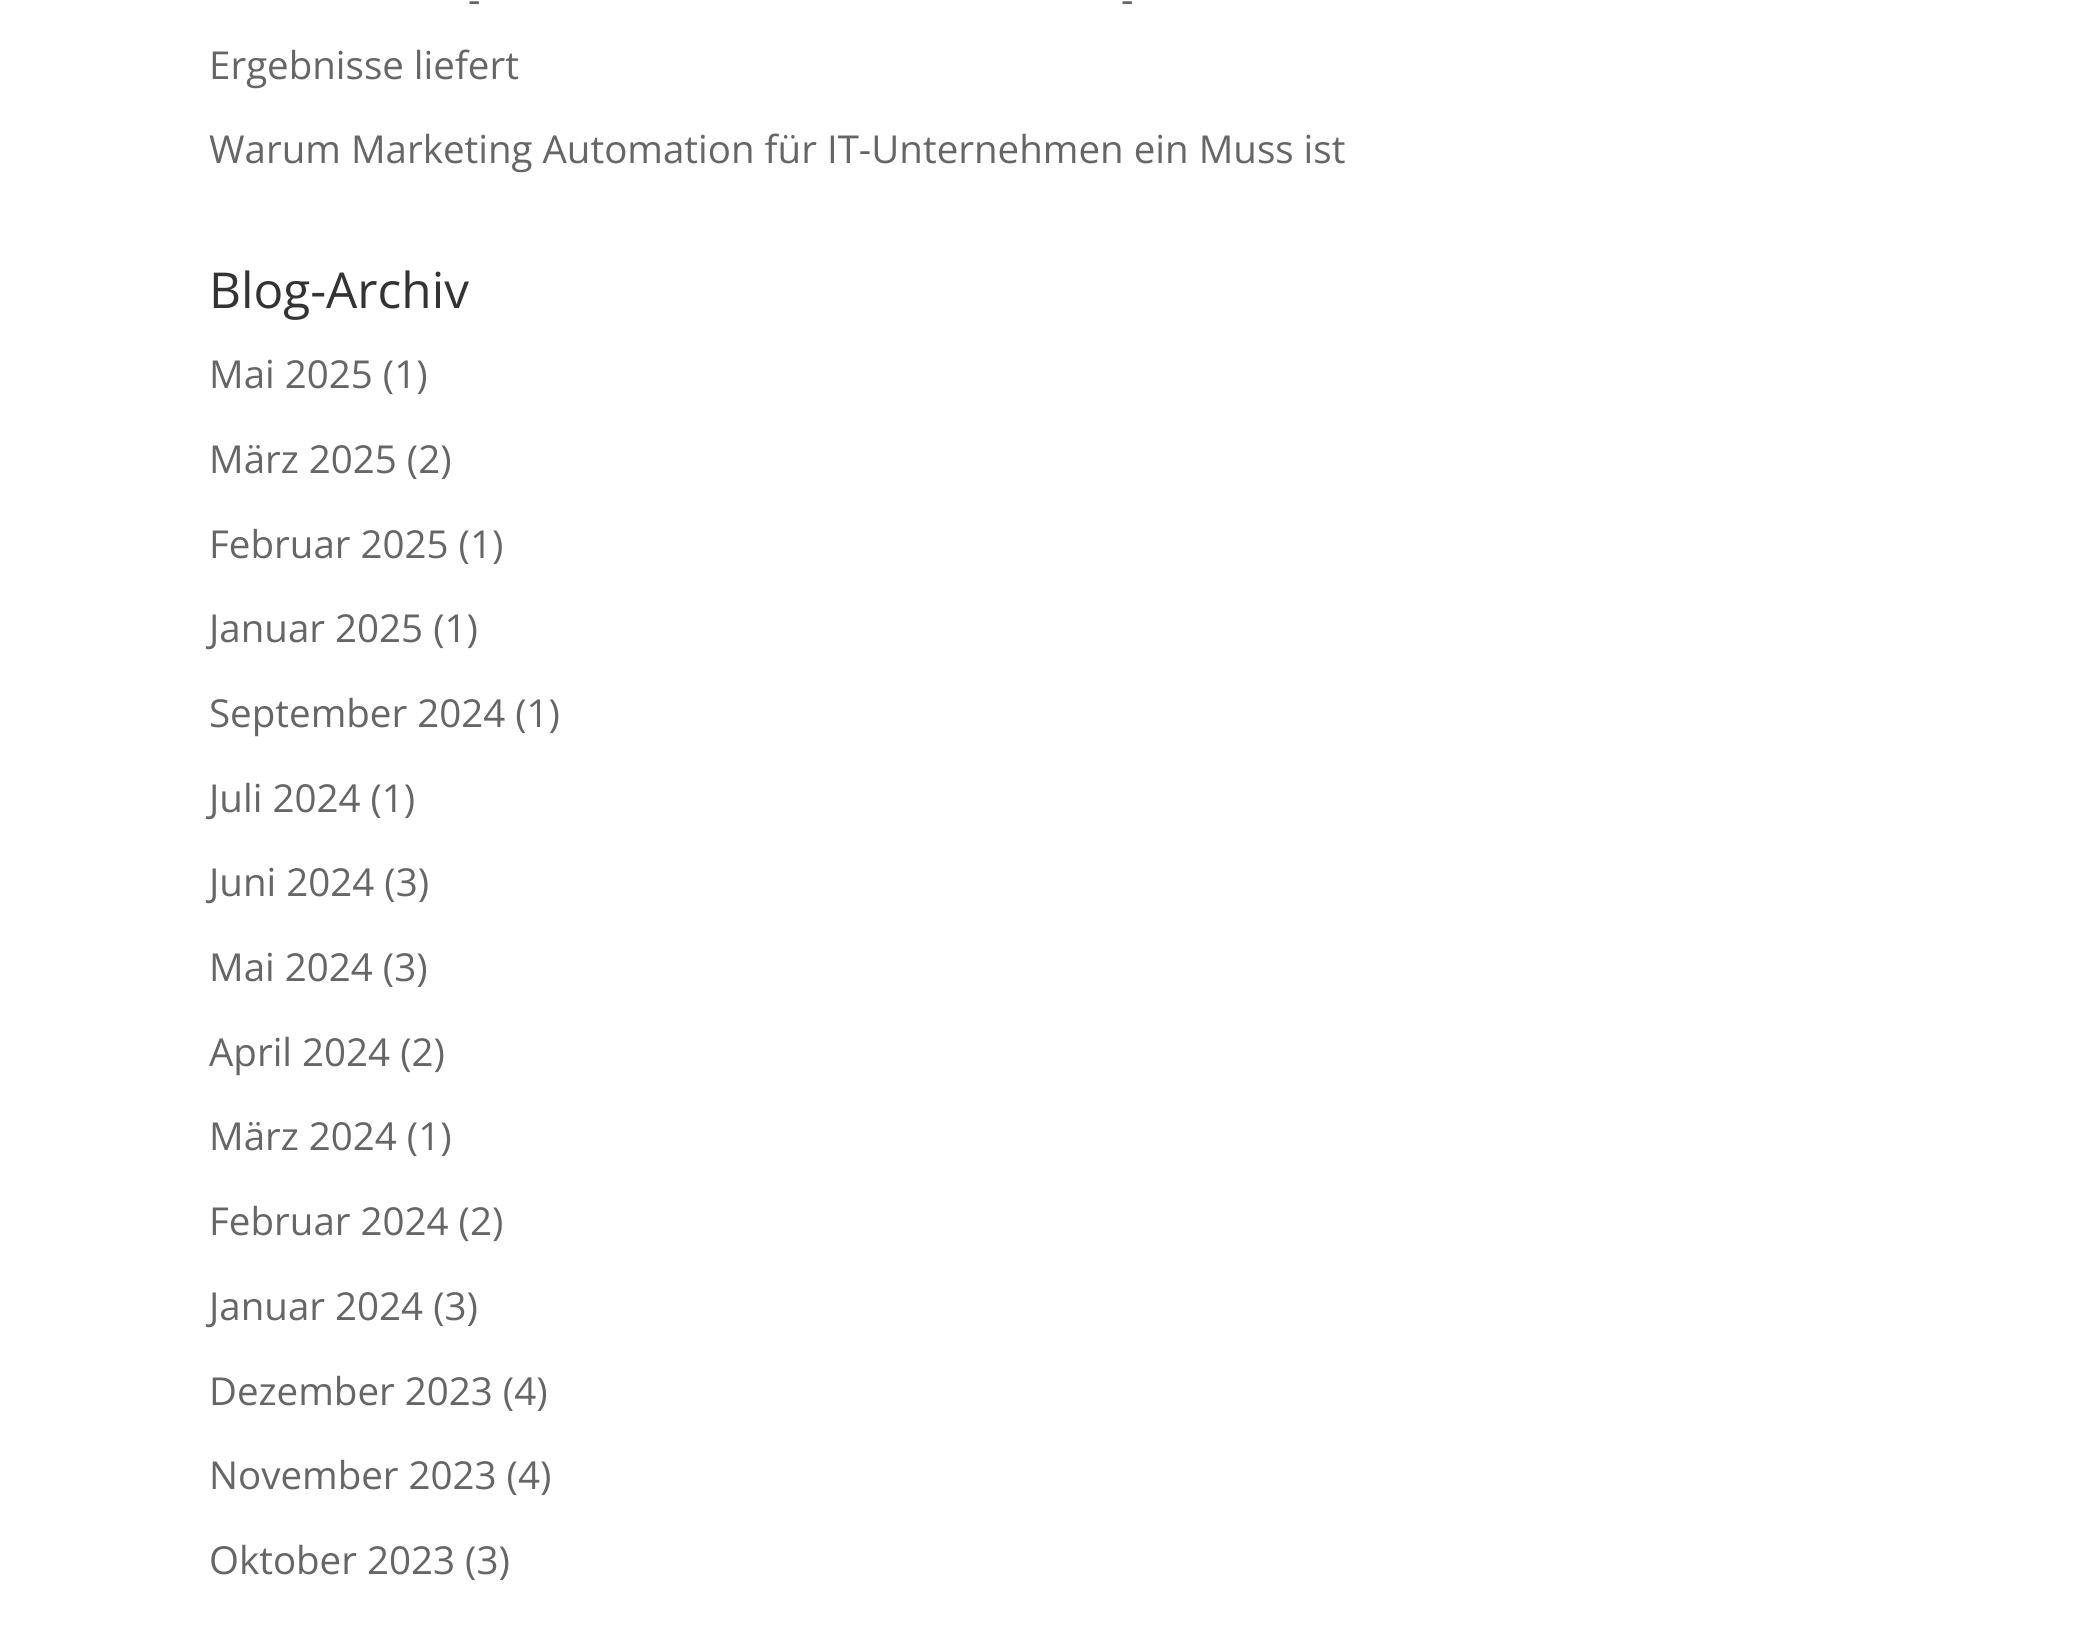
#include <cairo.h>
#include <math.h>
#include <stddef.h>

static cairo_t *c;
static void C(unsigned color){cairo_set_source_rgb(c, (color >> 16) / 255.0, (color >> 8 & 255) / 255.0, (color & 255) / 255.0);}
static void F(const char *family, double size, int italic, int bold){cairo_select_font_face(c, family, italic ? CAIRO_FONT_SLANT_ITALIC : CAIRO_FONT_SLANT_NORMAL,bold ? CAIRO_FONT_WEIGHT_BOLD : CAIRO_FONT_WEIGHT_NORMAL);cairo_set_font_size(c, size);}
static void T(double x, double y, const char *s){cairo_move_to(c, x, y);cairo_show_text(c, s);}
int main(void) {
cairo_surface_t *surface = cairo_image_surface_create(CAIRO_FORMAT_RGB24, 2087, 1646);
c = cairo_create(surface);
cairo_font_options_t *options = cairo_font_options_create();
cairo_font_options_set_hint_metrics(options, CAIRO_HINT_METRICS_OFF);
cairo_font_options_set_hint_style(options, CAIRO_HINT_STYLE_NONE);
cairo_set_font_options(c, options);
cairo_set_miter_limit(c, 4);
C(0xffffff);
cairo_paint(c);
F("Open Sans",38.5,0,0);
C(0x666666);
T(468,13,"-");
T(1121,13,"-");
T(209,79,"Ergebnisse liefert");
T(209,163,"Warum Marketing Automation für IT-Unternehmen ein Muss ist");
F("Open Sans",49.5,0,0);
C(0x333333);
T(209,308,"Blog-Archiv");
F("Open Sans",38.5,0,0);
C(0x666666);
T(209,388,"Mai 2025 (1)");
T(209,473,"März 2025 (2)");
T(209,558,"Februar 2025 (1)");
T(209,642,"Januar 2025 (1)");
T(209,727,"September 2024 (1)");
T(209,812,"Juli 2024 (1)");
T(209,896,"Juni 2024 (3)");
T(209,981,"Mai 2024 (3)");
T(209,1066,"April 2024 (2)");
T(209,1150,"März 2024 (1)");
T(209,1235,"Februar 2024 (2)");
T(209,1320,"Januar 2024 (3)");
T(209,1405,"Dezember 2023 (4)");
T(209,1489,"November 2023 (4)");
T(209,1574,"Oktober 2023 (3)");
cairo_surface_write_to_png(surface, "o.png");
cairo_font_options_destroy(options);
cairo_destroy(c);
cairo_surface_destroy(surface);
return 0;
}
